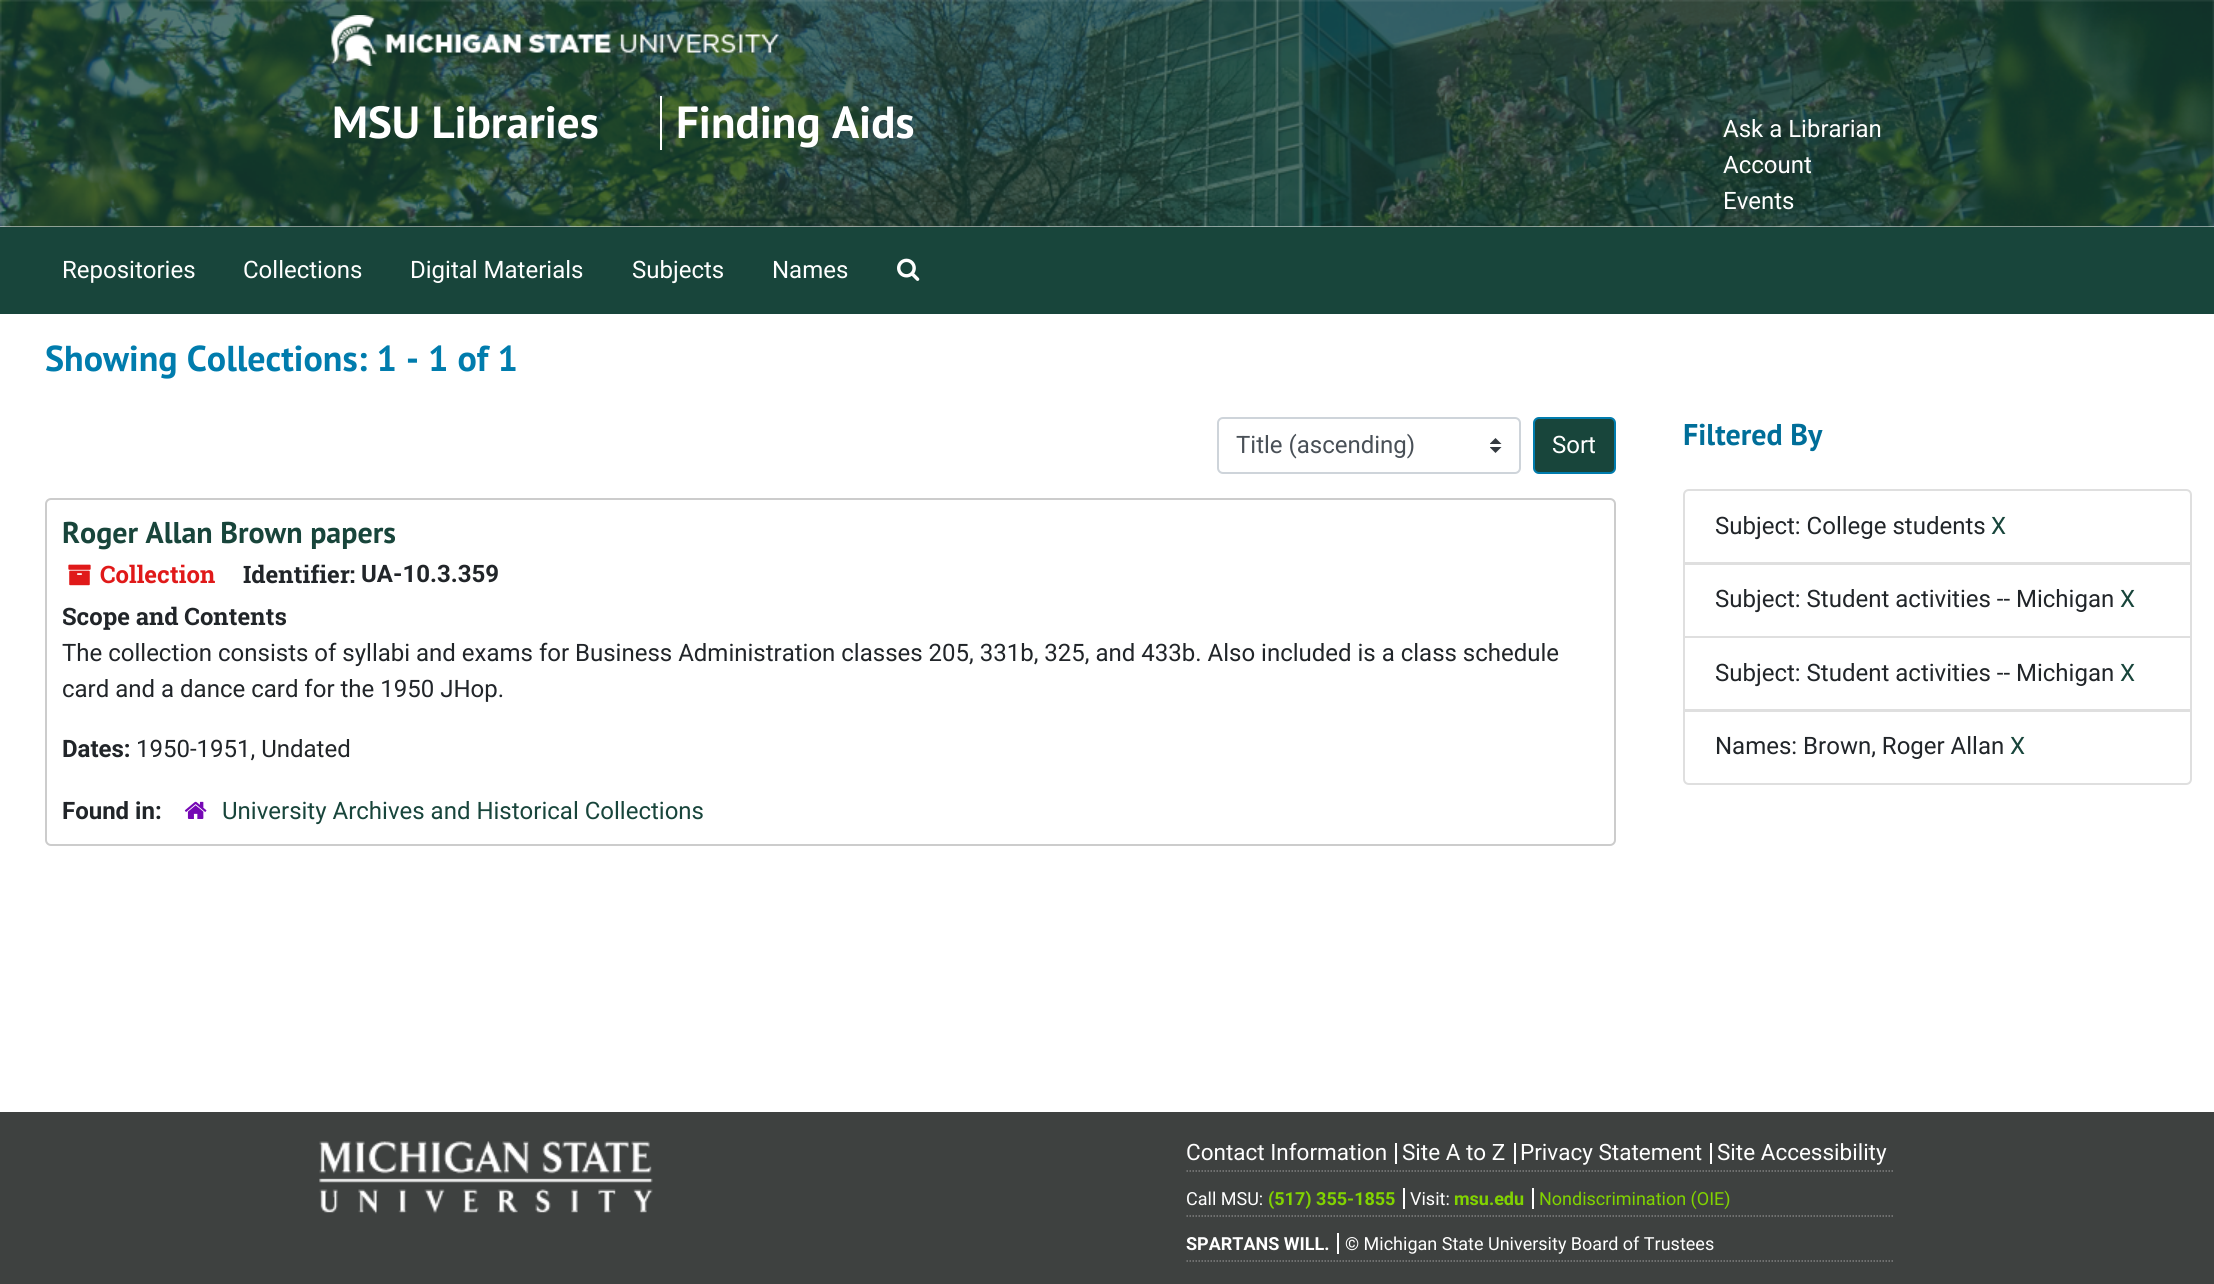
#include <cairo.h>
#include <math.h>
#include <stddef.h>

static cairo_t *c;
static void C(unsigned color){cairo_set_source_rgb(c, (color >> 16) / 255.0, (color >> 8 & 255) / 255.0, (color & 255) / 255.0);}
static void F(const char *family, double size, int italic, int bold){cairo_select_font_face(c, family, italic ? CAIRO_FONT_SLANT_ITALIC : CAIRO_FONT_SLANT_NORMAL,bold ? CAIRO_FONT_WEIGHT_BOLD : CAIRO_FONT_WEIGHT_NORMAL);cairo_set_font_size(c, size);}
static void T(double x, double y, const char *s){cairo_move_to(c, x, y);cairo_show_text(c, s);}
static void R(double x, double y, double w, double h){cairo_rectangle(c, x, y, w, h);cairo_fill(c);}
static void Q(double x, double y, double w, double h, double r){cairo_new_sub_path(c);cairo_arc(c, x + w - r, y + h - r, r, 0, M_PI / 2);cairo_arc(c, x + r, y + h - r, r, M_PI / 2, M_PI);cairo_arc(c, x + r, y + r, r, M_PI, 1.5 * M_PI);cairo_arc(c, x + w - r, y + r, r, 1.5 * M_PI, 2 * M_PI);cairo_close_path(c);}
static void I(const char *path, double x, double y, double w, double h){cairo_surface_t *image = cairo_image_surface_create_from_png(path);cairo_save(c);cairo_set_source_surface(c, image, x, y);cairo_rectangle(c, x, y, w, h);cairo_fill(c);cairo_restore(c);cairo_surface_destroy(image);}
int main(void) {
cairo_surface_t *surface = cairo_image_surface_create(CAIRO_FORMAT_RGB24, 2214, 1284);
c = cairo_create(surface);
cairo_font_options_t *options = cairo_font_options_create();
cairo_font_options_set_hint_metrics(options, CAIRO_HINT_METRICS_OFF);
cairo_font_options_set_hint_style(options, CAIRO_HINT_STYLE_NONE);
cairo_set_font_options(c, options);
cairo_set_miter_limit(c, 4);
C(0xffffff);
cairo_paint(c);
I("1.png",0,0,2214,227);
I("2.png",331,15,448,51);
C(0xffffff);
R(660,96,2,54);
F("PT Sans",45,0,1);
T(332,138,"MSU Libraries");
T(676,138,"Finding Aids");
F("Roboto",24,0,0);
T(1723,137,"Ask a Librarian");
T(1723,173,"Account");
T(1723,209,"Events");
cairo_rectangle(c,1,228,2212,85);
C(0x18453b);
cairo_stroke(c);
R(2,229,2210,83);
C(0xffffff);
T(62,278,"Repositories");
T(243,278,"Collections");
T(410,278,"Digital Materials");
T(632,278,"Subjects");
T(772,278,"Names");
I("3.png",897,258,23,23);
F("PT Sans",36,0,1);
C(0x007cad);
T(45,371,"Showing Collections: 1 - 1 of 1");
I("4.png",1490,438,12,15);
Q(1218,418,302,55,5);
C(0xced4da);
cairo_stroke(c);
F("Roboto",24,0,0);
C(0x495057);
T(1236,453,"Title (ascending)");
C(0x18453b);
Q(1534,418,81,55,5);
cairo_fill_preserve(c);
C(0x007cad);
cairo_stroke(c);
C(0xffffff);
T(1552,453,"Sort");
Q(46,499,1569,346,5);
C(0xcccccc);
cairo_stroke(c);
F("PT Sans",30,0,1);
C(0x18453b);
T(62,543,"Roger Allan Brown papers");
I("5.png",68,564,23,22);
F("Roboto Slab",24,0,1);
C(0xe01919);
T(100,583,"Collection");
C(0x212529);
T(243,583,"Identifier:");
F("Roboto",24,0,1);
T(361,582,"UA-10.3.359");
F("Roboto Slab",24,0,1);
T(62,625,"Scope and Contents");
F("Roboto",24,0,0);
T(62,661,"The collection consists of syllabi and exams for Business Administration classes 205, 331b, 325, and 433b. Also included is a class schedule");
T(62,697,"card and a dance card for the 1950 JHop.");
F("Roboto",24,0,1);
T(62,757,"Dates:");
F("Roboto",24,0,0);
T(136,757,"1950-1951, Undated");
F("Roboto",24,0,1);
T(62,819,"Found in:");
I("6.png",184,801,23,18);
F("Roboto",24,0,0);
C(0x18453b);
T(222,819,"University Archives and Historical Collections");
F("PT Sans",30,0,1);
C(0x006e99);
T(1683,445,"Filtered By");
cairo_new_path(c);
cairo_move_to(c,1689,490);
cairo_line_to(c,2186,490);
cairo_curve_to(c,2189,490,2191,492,2191,495);
cairo_line_to(c,2191,563);
cairo_line_to(c,1684,563);
cairo_line_to(c,1684,495);
cairo_curve_to(c,1684,492,1686,490,1689,490);
cairo_close_path(c);
C(0xdfdfdf);
cairo_stroke(c);
F("Roboto",24,0,0);
C(0x212529);
T(1715,534,"Subject: College students");
C(0x18453b);
T(1991,534,"X");
cairo_rectangle(c,1684,564,507,73);
C(0xdfdfdf);
cairo_stroke(c);
C(0x212529);
T(1715,607,"Subject: Student activities -- Michigan");
C(0x18453b);
T(2120,607,"X");
cairo_rectangle(c,1684,637,507,73);
C(0xdfdfdf);
cairo_stroke(c);
C(0x212529);
T(1715,681,"Subject: Student activities -- Michigan");
C(0x18453b);
T(2120,681,"X");
C(0xffffff);
cairo_new_path(c);
cairo_move_to(c,1684,711);
cairo_line_to(c,2191,711);
cairo_line_to(c,2191,779);
cairo_curve_to(c,2191,782,2189,784,2186,784);
cairo_line_to(c,1689,784);
cairo_curve_to(c,1686,784,1684,782,1684,779);
cairo_close_path(c);
cairo_fill_preserve(c);
C(0xdfdfdf);
cairo_stroke(c);
C(0x212529);
T(1715,754,"Names: Brown, Roger Allan");
C(0x18453b);
T(2010,754,"X");
C(0x3e4140);
R(0,1112,2214,172);
I("7.png",319,1141,334,73);
cairo_new_path(c);
cairo_move_to(c,1186.5,1171);
cairo_line_to(c,1894.5,1171);
C(0x808080);
cairo_set_line_width(c,1.5);
cairo_set_dash(c,(double[]){1.5,1.5},2,0);
cairo_stroke(c);
F("Roboto",22.5,0,0);
C(0xffffff);
T(1186,1160,"Contact Information");
R(1395,1143,2,21);
T(1402,1160,"Site A to Z");
R(1514,1143,2,21);
T(1520,1160,"Privacy Statement");
R(1710,1143,2,21);
T(1717,1160,"Site Accessibility");
cairo_new_path(c);
cairo_move_to(c,1186.5,1216);
cairo_line_to(c,1894.5,1216);
C(0x808080);
cairo_stroke(c);
F("Roboto",18,0,0);
C(0xffffff);
T(1186,1205,"Call MSU:");
F("Roboto",18,0,1);
C(0x81d300);
T(1268,1205,"(517) 355-1855");
C(0xffffff);
R(1403,1188,2,21);
F("Roboto",18,0,0);
T(1410,1205,"Visit:");
F("Roboto",18,0,1);
C(0x81d300);
T(1454,1205,"msu.edu");
C(0xffffff);
R(1532,1188,2,21);
F("Roboto",18,0,0);
C(0x81d300);
T(1539,1205,"Nondiscrimination (OIE)");
cairo_new_path(c);
cairo_move_to(c,1186.5,1261);
cairo_line_to(c,1894.5,1261);
C(0x808080);
cairo_stroke(c);
F("Roboto",18,0,1);
C(0xffffff);
T(1186,1250,"SPARTANS WILL.");
R(1337,1233,2,21);
F("Roboto",18,0,0);
T(1345,1250,"© Michigan State University Board of Trustees");
cairo_surface_write_to_png(surface, "o.png");
cairo_font_options_destroy(options);
cairo_destroy(c);
cairo_surface_destroy(surface);
return 0;
}
